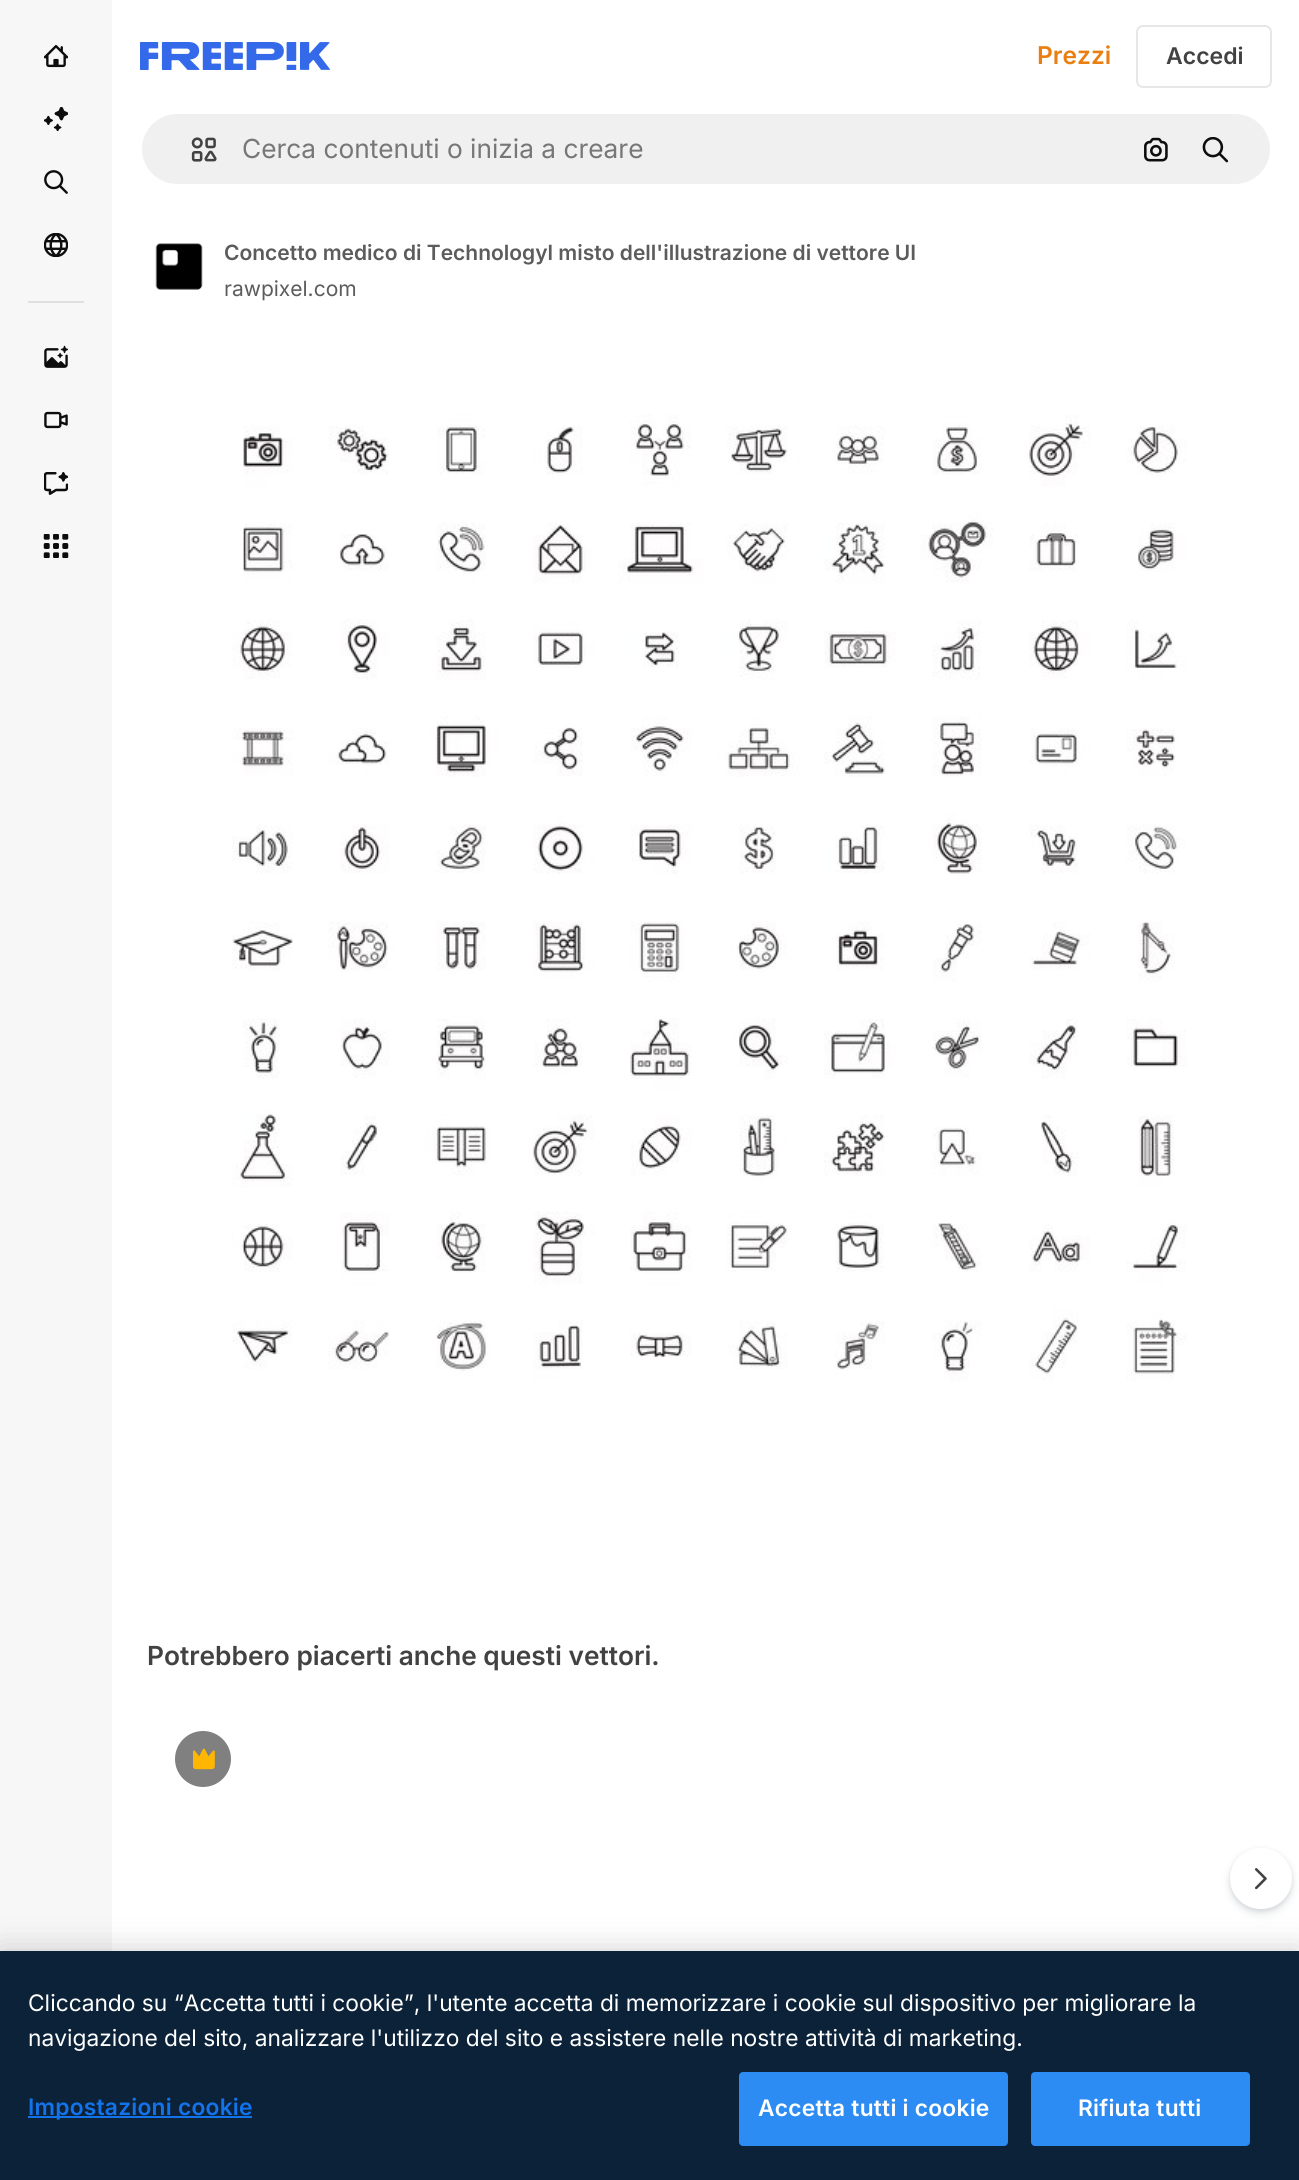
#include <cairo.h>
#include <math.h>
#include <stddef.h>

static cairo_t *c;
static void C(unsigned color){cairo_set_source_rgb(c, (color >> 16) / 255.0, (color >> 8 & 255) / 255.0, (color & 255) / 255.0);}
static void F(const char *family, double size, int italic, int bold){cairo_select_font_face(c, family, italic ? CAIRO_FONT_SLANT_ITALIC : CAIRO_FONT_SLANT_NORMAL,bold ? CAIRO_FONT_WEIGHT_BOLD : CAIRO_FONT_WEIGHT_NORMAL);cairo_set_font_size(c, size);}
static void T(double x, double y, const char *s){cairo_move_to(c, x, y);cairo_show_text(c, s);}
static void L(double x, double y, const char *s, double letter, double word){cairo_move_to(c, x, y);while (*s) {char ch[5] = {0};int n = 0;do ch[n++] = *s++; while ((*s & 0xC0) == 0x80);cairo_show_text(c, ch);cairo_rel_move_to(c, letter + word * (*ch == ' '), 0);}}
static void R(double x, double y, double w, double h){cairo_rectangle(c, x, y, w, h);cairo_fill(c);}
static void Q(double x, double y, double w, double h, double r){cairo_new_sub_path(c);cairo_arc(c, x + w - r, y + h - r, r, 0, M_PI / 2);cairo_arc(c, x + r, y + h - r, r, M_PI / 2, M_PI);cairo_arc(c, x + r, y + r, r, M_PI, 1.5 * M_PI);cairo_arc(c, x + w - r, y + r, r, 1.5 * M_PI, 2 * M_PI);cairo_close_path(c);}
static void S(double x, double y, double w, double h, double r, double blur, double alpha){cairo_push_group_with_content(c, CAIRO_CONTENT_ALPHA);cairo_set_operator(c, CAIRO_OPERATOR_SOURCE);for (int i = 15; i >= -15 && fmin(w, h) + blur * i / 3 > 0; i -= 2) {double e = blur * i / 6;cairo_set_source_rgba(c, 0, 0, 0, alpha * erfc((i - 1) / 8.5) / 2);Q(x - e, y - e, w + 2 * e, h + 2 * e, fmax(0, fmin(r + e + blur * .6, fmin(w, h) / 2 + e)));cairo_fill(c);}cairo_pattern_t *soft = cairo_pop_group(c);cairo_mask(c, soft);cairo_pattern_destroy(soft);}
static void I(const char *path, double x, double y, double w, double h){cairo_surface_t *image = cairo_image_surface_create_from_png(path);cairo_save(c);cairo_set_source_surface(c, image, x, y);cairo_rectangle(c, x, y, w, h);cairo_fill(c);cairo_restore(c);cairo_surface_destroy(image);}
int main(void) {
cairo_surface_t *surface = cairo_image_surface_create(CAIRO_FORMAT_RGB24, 1299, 2180);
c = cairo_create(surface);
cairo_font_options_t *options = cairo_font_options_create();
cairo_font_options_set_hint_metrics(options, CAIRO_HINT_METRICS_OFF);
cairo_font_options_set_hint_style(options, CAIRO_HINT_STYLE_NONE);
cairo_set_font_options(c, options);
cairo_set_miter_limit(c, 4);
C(0xffffff);
cairo_paint(c);
C(0xf7f7f7);
R(0,0,112,1951);
I("1.png",44,45,24,23);
I("2.png",44,107,24,24);
I("3.png",44,170,24,24);
I("4.png",44,233,24,24);
C(0xe0e0e0);
R(28,301,56,2);
I("5.png",44,345,24,23);
I("6.png",44,411,24,18);
I("7.png",44,472,24,23);
I("8.png",43,534,26,24);
I("9.png",140,42,190,28);
F("Inter SemiBold",24.5,0,0);
C(0xea7e11);
T(1037,64,"Prezzi");
Q(1137,26,134,61,6);
C(0xe7e7e7);
cairo_stroke(c);
F("Inter SemiBold",23,0,0);
C(0x424242);
T(1166,64,"Accedi");
C(0xf0f0f0);
Q(141,113,1130,72,36);
cairo_fill_preserve(c);
C(0xffffff);
cairo_stroke(c);
I("10.png",191,137,26,25);
F("Inter",26.25,0,0);
C(0x777777);
T(242,158,"Cerca contenuti o inizia a creare");
I("11.png",1144,137,24,25);
I("12.png",1202,137,27,26);
I("13.png",155,243,48,47);
F("Inter SemiBold",21,0,0);
C(0x5c5c5c);
T(224,260,"Concetto medico di Technologyl misto dell'illustrazione di vettore UI");
F("Inter",21,0,0);
T(224,296,"rawpixel.com");
I("14.png",232,414,955,967);
F("Inter SemiBold",26.25,0,0);
C(0x424242);
T(147,1665,"Potrebbero piacerti anche questi vettori.");
C(0x808080);
cairo_new_path(c);
cairo_arc(c,203,1759,28,0,2 * M_PI);
cairo_fill(c);
I("15.png",193,1748,22,22);
C(0x374957);
S(1230,1852,62,61,30.5,4.5,.15);
S(1230,1850,62,61,30.5,2,.1);
C(0xffffff);
Q(1230,1848,62,61,30.5);
cairo_fill(c);
I("16.png",1255,1868,12,22);
C(0x000000);
S(0,1951,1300,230,0,16,.2);
C(0x0b2239);
R(0,1951,1299,229);
F("Inter",22.75,0,0);
C(0xffffff);
T(28,2011,"Cliccando su “Accetta tutti i cookie”, l'utente accetta di memorizzare i cookie sul dispositivo per migliorare la");
T(28,2046,"navigazione del sito, analizzare l'utilizzo del sito e assistere nelle nostre attività di marketing.");
C(0x1273eb);
R(28,2116,224,2);
F("Inter SemiBold",22.75,0,0);
L(28,2115,"Impostazioni cookie",.25,0);
C(0x2c8cf4);
Q(740,2073,267,72,3);
cairo_fill_preserve(c);
cairo_stroke(c);
C(0xffffff);
L(758,2116,"Accetta tutti i cookie",.25,0);
C(0x2c8cf4);
Q(1032,2073,217,72,3);
cairo_fill_preserve(c);
cairo_stroke(c);
C(0xffffff);
L(1078,2116,"Rifiuta tutti",.25,0);
cairo_surface_write_to_png(surface, "o.png");
cairo_font_options_destroy(options);
cairo_destroy(c);
cairo_surface_destroy(surface);
return 0;
}
